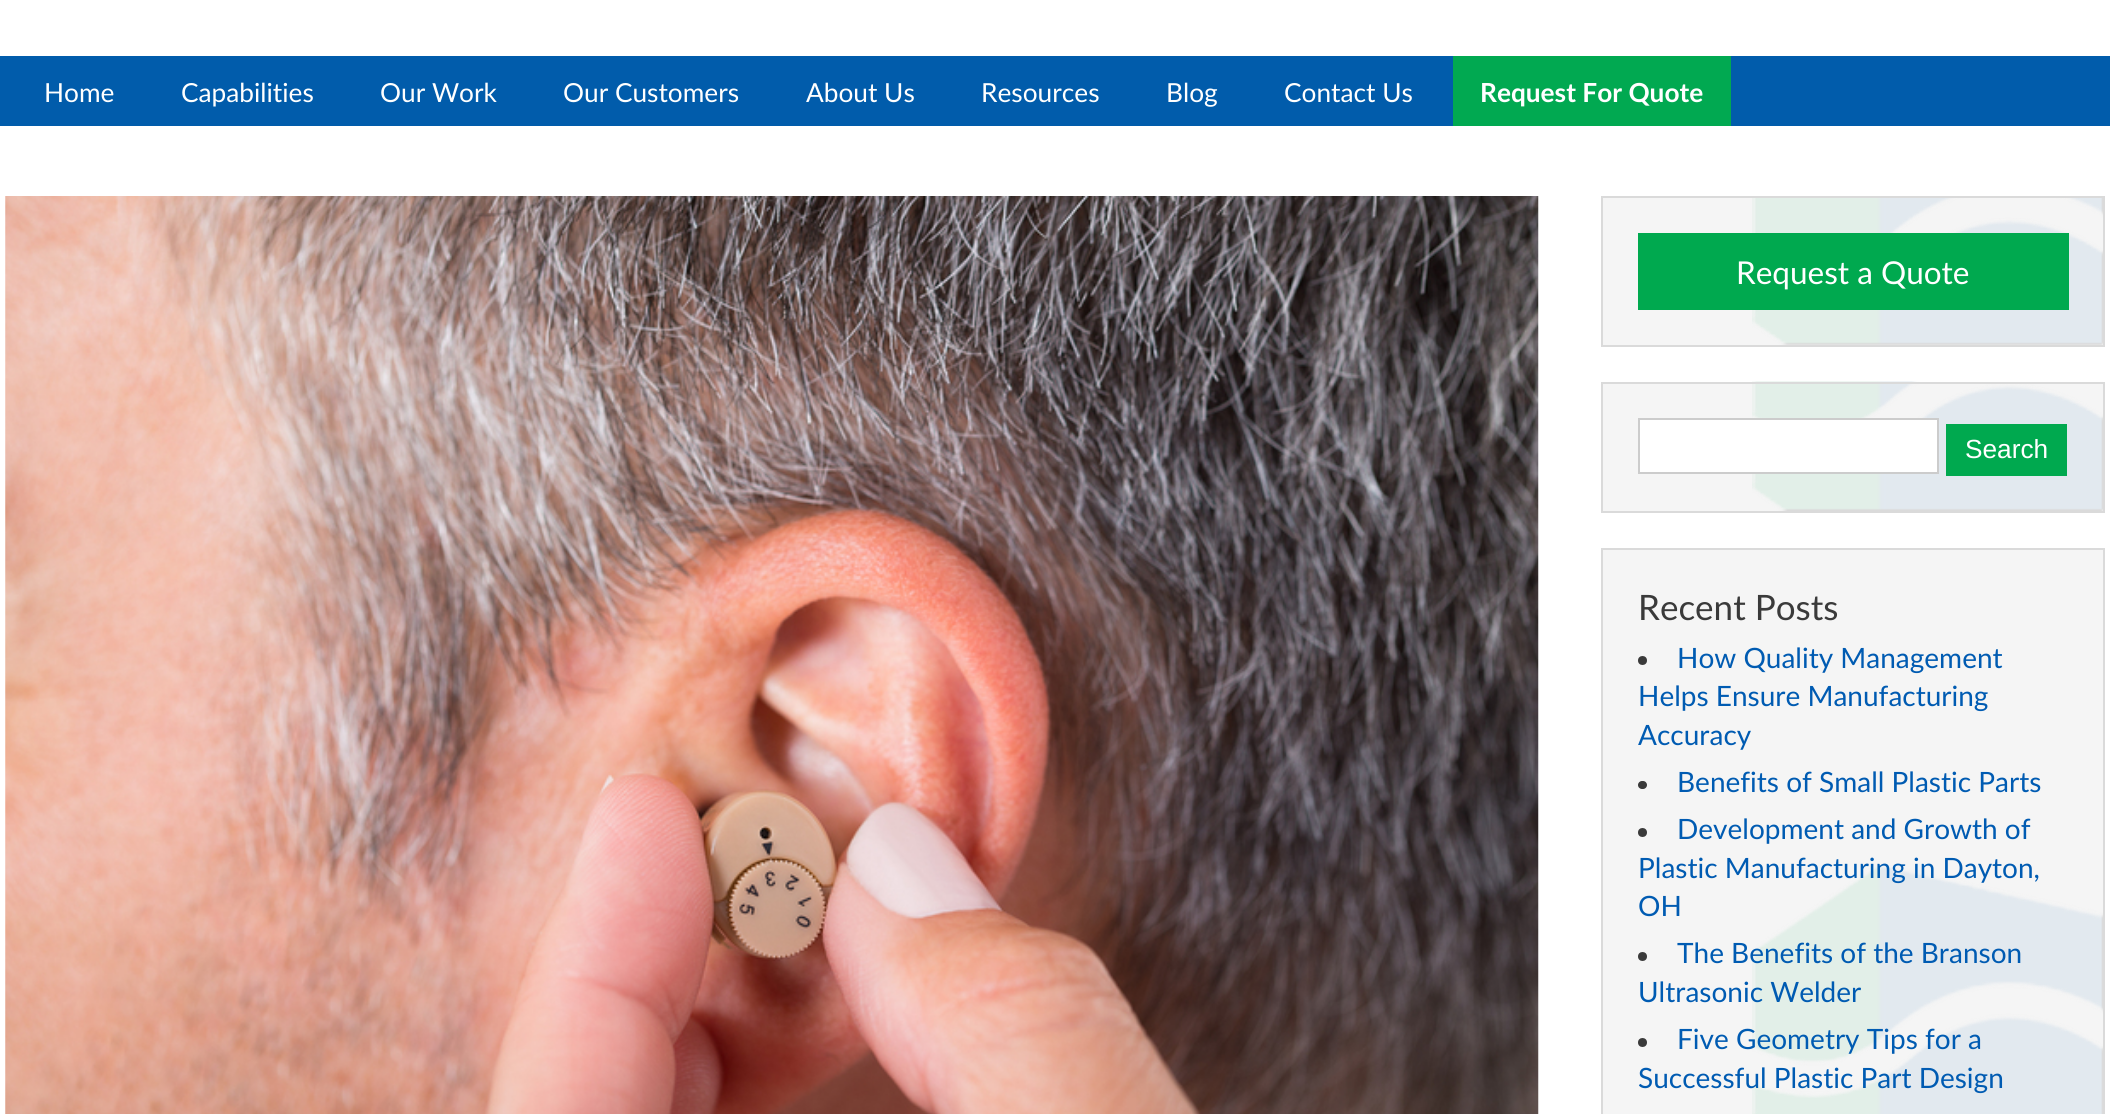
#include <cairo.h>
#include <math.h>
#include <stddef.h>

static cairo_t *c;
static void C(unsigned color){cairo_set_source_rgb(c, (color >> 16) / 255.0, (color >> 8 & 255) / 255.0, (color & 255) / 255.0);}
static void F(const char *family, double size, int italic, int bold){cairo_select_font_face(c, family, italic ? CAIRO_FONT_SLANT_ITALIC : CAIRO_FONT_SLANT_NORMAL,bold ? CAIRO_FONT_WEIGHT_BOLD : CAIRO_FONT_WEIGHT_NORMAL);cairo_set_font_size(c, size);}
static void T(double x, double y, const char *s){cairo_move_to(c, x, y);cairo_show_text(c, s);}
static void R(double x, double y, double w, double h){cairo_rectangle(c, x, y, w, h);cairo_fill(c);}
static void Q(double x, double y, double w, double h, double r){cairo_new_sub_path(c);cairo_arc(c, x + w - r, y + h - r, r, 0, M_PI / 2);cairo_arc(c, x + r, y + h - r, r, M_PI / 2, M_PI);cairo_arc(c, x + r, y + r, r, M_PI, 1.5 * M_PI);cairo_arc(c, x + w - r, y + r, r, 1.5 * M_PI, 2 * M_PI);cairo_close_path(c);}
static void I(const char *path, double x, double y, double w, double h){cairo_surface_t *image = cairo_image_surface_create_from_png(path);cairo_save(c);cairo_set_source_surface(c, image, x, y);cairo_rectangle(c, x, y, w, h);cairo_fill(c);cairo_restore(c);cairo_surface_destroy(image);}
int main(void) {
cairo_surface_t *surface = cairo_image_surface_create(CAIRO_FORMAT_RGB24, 2110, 1114);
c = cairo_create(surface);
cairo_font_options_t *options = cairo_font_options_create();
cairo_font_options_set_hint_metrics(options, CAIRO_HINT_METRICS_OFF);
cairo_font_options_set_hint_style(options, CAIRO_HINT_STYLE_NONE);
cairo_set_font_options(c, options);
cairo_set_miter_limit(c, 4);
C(0xffffff);
cairo_paint(c);
C(0x015cab);
R(0,56,2110,70);
F("Lato",26.25,0,0);
C(0xffffff);
T(44,102,"Home");
T(181,102,"Capabilities");
T(380,102,"Our Work");
T(563,102,"Our Customers");
T(806,102,"About Us");
T(981,102,"Resources");
T(1166,102,"Blog");
T(1284,102,"Contact Us");
C(0x01a951);
R(1453,56,278,70);
F("Lato",26.25,0,1);
C(0xffffff);
T(1480,102,"Request For Quote");
I("1.png",5,196,1534,918);
C(0xf5f5f5);
R(1603,198,500,147);
I("2.png",1752,198,351,147);
cairo_rectangle(c,1602,197,502,149);
C(0xdadada);
cairo_stroke(c);
C(0x00a94f);
R(1638,233,431,77);
F("Lato",31.5,0,0);
C(0xffffff);
T(1736,284,"Request a Quote");
C(0xf5f5f5);
R(1603,384,500,127);
I("3.png",1752,381,351,130);
cairo_rectangle(c,1602,383,502,129);
C(0xdadada);
cairo_stroke(c);
C(0xffffff);
cairo_rectangle(c,1639,419,299,54);
cairo_fill_preserve(c);
C(0xcccccc);
cairo_stroke(c);
C(0x00a94f);
R(1946,424,121,52);
F("Liberation Sans",26.25,0,0);
C(0xffffff);
T(1965,458,"Search");
C(0xf5f5f5);
R(1603,550,500,564);
I("4.png",1752,865,351,249);
cairo_rectangle(c,1602,549,502,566);
C(0xdadada);
cairo_stroke(c);
F("Lato",35,0,0);
C(0x3a3a3a);
T(1638,620,"Recent Posts");
cairo_new_path(c);
cairo_arc(c,1642.5,660.5,4.5,0,2 * M_PI);
cairo_fill(c);
F("Lato",28,0,0);
C(0x005bb2);
T(1677,668,"How Quality Management");
T(1638,706,"Helps Ensure Manufacturing");
T(1638,745,"Accuracy");
C(0x3a3a3a);
Q(1638,781,9,8,4);
cairo_fill(c);
C(0x005bb2);
T(1677,792,"Benefits of Small Plastic Parts");
C(0x3a3a3a);
cairo_new_path(c);
cairo_arc(c,1642.5,832.5,4.5,0,2 * M_PI);
cairo_fill(c);
C(0x005bb2);
T(1677,839,"Development and Growth of");
T(1638,878,"Plastic Manufacturing in Dayton,");
T(1638,916,"OH");
C(0x3a3a3a);
cairo_new_path(c);
cairo_arc(c,1642.5,956.5,4.5,0,2 * M_PI);
cairo_fill(c);
C(0x005bb2);
T(1677,963,"The Benefits of the Branson");
T(1638,1002,"Ultrasonic Welder");
C(0x3a3a3a);
cairo_new_path(c);
cairo_arc(c,1642.5,1042.5,4.5,0,2 * M_PI);
cairo_fill(c);
C(0x005bb2);
T(1677,1049,"Five Geometry Tips for a");
T(1638,1088,"Successful Plastic Part Design");
cairo_surface_write_to_png(surface, "o.png");
cairo_font_options_destroy(options);
cairo_destroy(c);
cairo_surface_destroy(surface);
return 0;
}
